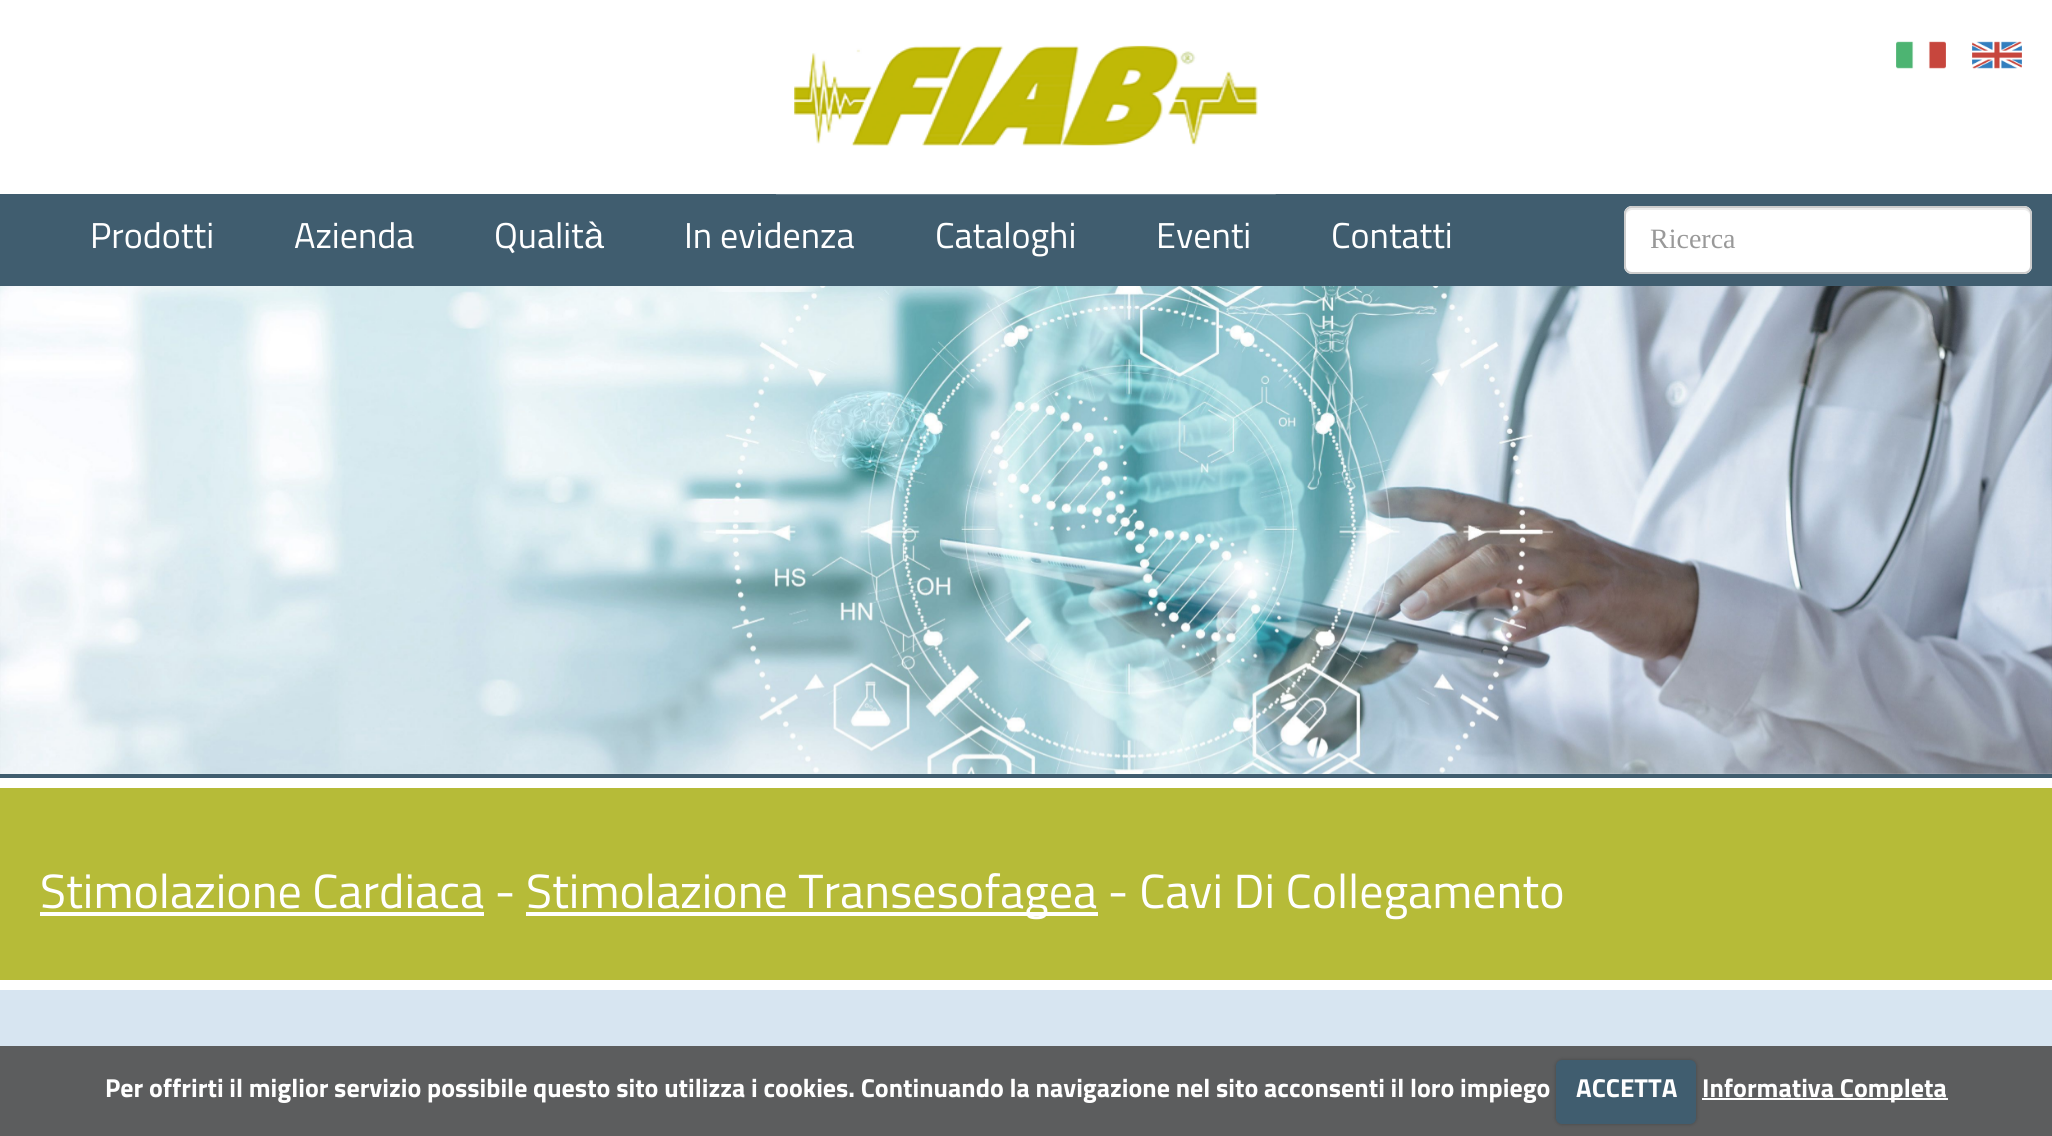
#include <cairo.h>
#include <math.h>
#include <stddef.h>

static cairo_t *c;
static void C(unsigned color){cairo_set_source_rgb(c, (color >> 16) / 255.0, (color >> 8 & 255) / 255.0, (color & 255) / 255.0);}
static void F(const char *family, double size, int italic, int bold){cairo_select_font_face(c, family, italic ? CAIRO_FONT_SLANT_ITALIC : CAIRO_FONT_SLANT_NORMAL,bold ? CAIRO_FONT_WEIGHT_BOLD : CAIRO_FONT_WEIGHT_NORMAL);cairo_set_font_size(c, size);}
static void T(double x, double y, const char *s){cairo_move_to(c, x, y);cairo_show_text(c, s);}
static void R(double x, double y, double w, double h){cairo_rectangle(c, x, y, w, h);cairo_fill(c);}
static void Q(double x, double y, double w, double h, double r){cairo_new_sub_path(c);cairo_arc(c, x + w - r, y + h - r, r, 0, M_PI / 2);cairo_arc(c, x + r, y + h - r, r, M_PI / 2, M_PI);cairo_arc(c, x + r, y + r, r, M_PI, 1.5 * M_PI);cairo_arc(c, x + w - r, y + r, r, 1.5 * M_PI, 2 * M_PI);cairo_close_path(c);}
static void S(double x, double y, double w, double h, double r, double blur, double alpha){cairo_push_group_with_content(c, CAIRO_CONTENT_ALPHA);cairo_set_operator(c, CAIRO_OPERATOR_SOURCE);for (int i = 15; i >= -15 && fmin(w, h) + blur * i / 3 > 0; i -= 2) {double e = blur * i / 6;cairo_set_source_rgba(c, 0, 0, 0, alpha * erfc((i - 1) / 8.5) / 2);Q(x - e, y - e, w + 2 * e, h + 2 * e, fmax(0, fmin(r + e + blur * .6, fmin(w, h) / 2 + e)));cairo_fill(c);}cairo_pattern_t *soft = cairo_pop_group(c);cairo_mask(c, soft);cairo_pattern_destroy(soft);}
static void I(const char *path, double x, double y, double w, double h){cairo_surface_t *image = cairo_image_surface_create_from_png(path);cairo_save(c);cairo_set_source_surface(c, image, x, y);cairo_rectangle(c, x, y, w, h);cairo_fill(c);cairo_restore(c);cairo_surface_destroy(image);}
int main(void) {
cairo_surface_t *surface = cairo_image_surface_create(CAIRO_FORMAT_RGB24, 2052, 1136);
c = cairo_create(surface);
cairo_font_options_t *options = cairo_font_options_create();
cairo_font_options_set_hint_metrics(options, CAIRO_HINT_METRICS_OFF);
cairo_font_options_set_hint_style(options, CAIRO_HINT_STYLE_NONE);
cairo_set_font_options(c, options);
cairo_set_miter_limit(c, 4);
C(0xffffff);
cairo_paint(c);
C(0x5e5e5e);
R(0,1130,2052,6);
C(0x405d6f);
R(0,194,2052,92);
I("1.png",776,45,500,150);
I("2.png",1896,41,50,28);
I("3.png",1972,41,50,28);
F("Sunflower Light",36,0,0);
C(0xffffff);
T(90,248,"Prodotti");
T(294,248,"Azienda");
T(494,248,"Qualit");
F("Liberation Sans",36,0,0);
T(584,248,"à");
F("Sunflower Light",36,0,0);
T(684,248,"In evidenza");
T(935,248,"Cataloghi");
T(1156,248,"Eventi");
T(1331,248,"Contatti");
Q(1624,206,408,68,8);
cairo_fill(c);
C(0xececec);
cairo_new_path(c);
cairo_move_to(c,1632,210);
cairo_line_to(c,2024,210);
cairo_curve_to(c,2027,210,2030,213,2030,216);
cairo_curve_to(c,2030,212,2029,208,2024,208);
cairo_line_to(c,1632,208);
cairo_curve_to(c,1627,208,1626,212,1626,216);
cairo_curve_to(c,1626,213,1629,210,1632,210);
cairo_close_path(c);
cairo_fill(c);
Q(1625,207,406,66,7);
C(0xcccccc);
cairo_stroke(c);
F("Liberation Serif",28,0,0);
C(0x999999);
T(1650,248,"Ricerca");
C(0x405d6f);
R(0,774,2052,4);
I("4.png",0,286,2052,488);
C(0xb6bb38);
R(0,788,2052,192);
F("Sunflower Light",48,0,0);
C(0xffffff);
T(40,908,"Stimolazione Cardiaca -");
R(40,912,444,4);
R(526,912,572,4);
T(526,908,"Stimolazione Transesofagea - Cavi Di Collegamento");
C(0xd7e5f1);
R(0,990,2052,56);
C(0x5c5d5e);
R(0,1046,2052,84);
F("Sunflower",26,0,1);
C(0xffffff);
T(105,1097,"Per offrirti il miglior servizio possibile questo sito utilizza i cookies. Continuando la navigazione nel sito acconsenti il loro impiego");
C(0x000000);
S(1556,1060,140,64,6,2,.25);
C(0x405d6f);
Q(1556,1060,140,64,6);
cairo_fill(c);
C(0xffffff);
T(1576,1097,"ACCETTA");
R(1702,1098,246,2);
T(1702,1097,"Informativa Completa");
cairo_surface_write_to_png(surface, "o.png");
cairo_font_options_destroy(options);
cairo_destroy(c);
cairo_surface_destroy(surface);
return 0;
}
